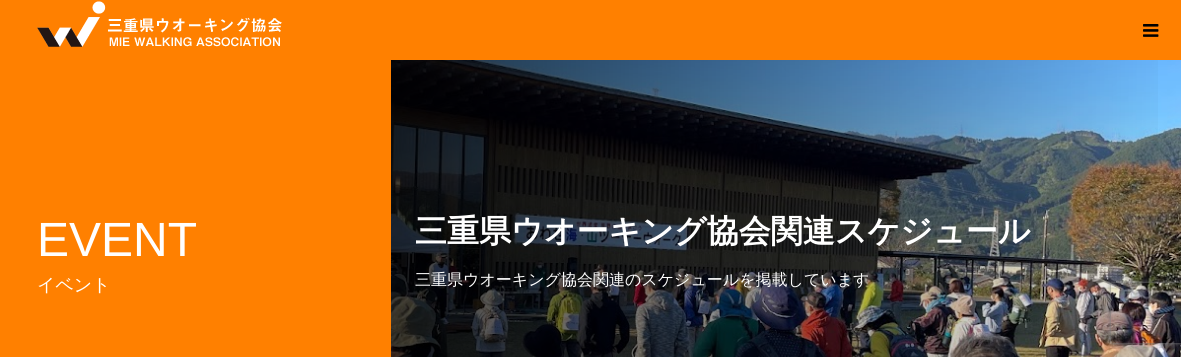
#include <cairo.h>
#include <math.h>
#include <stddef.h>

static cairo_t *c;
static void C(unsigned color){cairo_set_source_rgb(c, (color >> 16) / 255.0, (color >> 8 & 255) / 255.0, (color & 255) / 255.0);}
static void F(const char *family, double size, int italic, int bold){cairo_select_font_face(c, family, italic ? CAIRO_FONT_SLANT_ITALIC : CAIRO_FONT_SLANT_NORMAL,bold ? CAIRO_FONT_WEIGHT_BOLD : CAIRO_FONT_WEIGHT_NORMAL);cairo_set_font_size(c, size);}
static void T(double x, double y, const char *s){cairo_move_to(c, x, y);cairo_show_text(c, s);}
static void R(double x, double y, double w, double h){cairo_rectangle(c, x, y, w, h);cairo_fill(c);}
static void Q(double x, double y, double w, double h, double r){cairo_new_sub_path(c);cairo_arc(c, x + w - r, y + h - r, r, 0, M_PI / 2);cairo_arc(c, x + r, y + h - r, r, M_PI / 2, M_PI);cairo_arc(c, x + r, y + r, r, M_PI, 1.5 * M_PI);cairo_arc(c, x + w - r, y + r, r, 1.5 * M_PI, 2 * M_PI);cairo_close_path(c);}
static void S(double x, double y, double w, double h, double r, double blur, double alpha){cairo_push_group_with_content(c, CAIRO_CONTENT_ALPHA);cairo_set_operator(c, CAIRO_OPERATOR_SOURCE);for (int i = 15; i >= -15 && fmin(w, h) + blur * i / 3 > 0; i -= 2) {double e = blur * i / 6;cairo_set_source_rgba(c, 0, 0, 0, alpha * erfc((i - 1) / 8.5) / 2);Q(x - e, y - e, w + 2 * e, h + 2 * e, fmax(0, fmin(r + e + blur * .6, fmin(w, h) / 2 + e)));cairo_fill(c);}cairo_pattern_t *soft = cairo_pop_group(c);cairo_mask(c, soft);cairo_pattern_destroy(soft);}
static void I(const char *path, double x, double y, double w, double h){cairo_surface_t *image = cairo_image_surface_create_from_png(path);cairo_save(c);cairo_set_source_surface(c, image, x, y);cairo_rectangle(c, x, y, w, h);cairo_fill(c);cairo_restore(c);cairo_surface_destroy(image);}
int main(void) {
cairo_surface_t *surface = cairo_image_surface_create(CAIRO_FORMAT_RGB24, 1181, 357);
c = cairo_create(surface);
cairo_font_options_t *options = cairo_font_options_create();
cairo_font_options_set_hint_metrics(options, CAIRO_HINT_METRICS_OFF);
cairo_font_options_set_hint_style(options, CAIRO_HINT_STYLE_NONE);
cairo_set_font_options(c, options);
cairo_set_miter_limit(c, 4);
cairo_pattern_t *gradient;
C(0xff8000);
cairo_paint(c);
I("1.png",37,1,245,46);
I("2.png",1143,24,16,13);
I("3.png",391,60,790,297);
cairo_save(c);
cairo_set_fill_rule(c,CAIRO_FILL_RULE_EVEN_ODD);
cairo_new_path(c);
cairo_move_to(c,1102,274);
cairo_line_to(c,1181,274);
cairo_line_to(c,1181,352);
cairo_line_to(c,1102,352);
cairo_close_path(c);
cairo_move_to(c,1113,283);
cairo_line_to(c,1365,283);
cairo_curve_to(c,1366,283,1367,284,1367,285);
cairo_line_to(c,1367,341);
cairo_curve_to(c,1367,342,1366,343,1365,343);
cairo_line_to(c,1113,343);
cairo_curve_to(c,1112,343,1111,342,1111,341);
cairo_line_to(c,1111,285);
cairo_curve_to(c,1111,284,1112,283,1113,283);
cairo_close_path(c);
cairo_clip(c);
C(0x808080);
S(1111,283,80,60,2,2.5,1);
cairo_restore(c);
gradient = cairo_pattern_create_linear(391,256,1181,255);
cairo_pattern_add_color_stop_rgba(gradient,0,0,0,0,.75);
cairo_pattern_add_color_stop_rgba(gradient,1,0,0,0,0);
cairo_set_source(c,gradient);
cairo_pattern_destroy(gradient);
R(391,60,767,297);
F("Liberation Sans",48,0,0);
C(0xffffff);
T(37,256,"EVENT");
F("WenQuanYi Zen Hei Medium",18,0,0);
T(37,291,"イベント");
F("WenQuanYi Zen Hei",32,0,1);
T(415,242,"三重県ウオーキング協会関連スケジュール");
F("WenQuanYi Zen Hei Medium",16,0,0);
T(415,285,"三重県ウオーキング協会関連のスケジュールを掲載しています");
cairo_surface_write_to_png(surface, "o.png");
cairo_font_options_destroy(options);
cairo_destroy(c);
cairo_surface_destroy(surface);
return 0;
}
